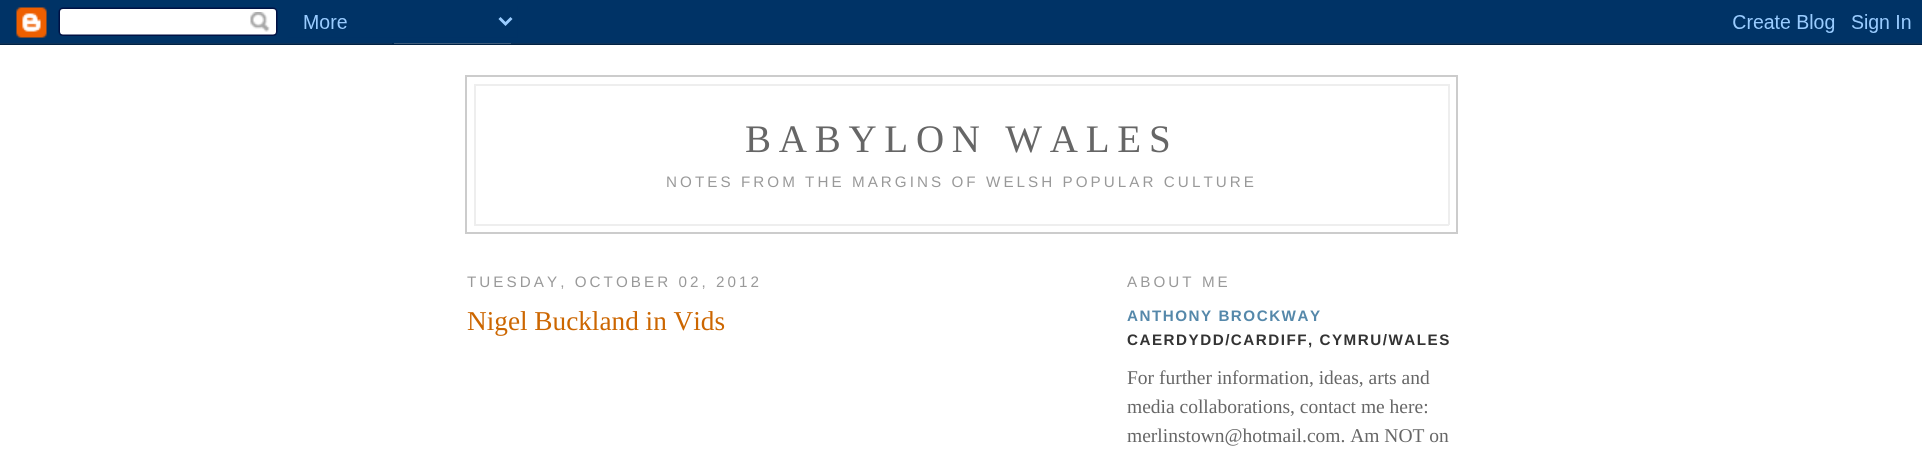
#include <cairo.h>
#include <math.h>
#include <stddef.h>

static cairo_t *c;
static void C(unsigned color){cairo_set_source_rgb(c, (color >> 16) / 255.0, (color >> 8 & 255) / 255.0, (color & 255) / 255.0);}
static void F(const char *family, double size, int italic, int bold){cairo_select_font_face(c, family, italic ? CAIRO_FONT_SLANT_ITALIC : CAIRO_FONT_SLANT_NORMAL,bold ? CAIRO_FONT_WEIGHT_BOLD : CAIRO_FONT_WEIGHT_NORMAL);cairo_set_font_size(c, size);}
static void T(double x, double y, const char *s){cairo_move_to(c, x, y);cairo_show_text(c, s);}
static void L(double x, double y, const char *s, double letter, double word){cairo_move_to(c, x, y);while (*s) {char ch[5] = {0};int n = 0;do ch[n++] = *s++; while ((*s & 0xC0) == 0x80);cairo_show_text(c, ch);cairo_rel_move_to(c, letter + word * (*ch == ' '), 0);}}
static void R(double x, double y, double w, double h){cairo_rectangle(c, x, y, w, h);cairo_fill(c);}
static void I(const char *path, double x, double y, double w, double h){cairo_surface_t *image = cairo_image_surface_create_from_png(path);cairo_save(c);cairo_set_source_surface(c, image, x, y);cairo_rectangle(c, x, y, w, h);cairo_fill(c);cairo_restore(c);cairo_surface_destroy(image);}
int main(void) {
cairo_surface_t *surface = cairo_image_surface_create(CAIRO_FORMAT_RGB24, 1922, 465);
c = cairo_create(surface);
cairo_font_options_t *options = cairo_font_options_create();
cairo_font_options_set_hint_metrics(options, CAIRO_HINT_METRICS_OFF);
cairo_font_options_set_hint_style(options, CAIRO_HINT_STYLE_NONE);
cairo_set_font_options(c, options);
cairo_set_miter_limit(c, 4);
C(0xffffff);
cairo_paint(c);
I("1.png",0,0,1922,45);
cairo_rectangle(c,466,76,991,157);
C(0xcccccc);
cairo_stroke(c);
C(0xeeeeee);
R(474,84,975,2);
R(1448,84,2,141);
R(474,84,2,89);
F("Liberation Serif",39,0,0);
C(0x666666);
L(745,152,"BABYLON WALES",7.75,0);
C(0xeeeeee);
R(474,224,975,2);
R(474,173,2,52);
F("Liberation Sans",15.2,0,0);
C(0x999999);
L(666,187,"NOTES FROM THE MARGINS OF WELSH POPULAR CULTURE",3.05,0);
L(467,287,"TUESDAY, OCTOBER 02, 2012",3.05,0);
F("Liberation Serif",27.25,0,0);
C(0xcc6600);
T(467,330,"Nigel Buckland in Vids");
F("Liberation Sans",15.2,0,0);
C(0x999999);
L(1127,287,"ABOUT ME",3.05,0);
F("Liberation Sans",15.2,0,1);
C(0x5588aa);
L(1127,321,"ANTHONY BROCKWAY",1.5,0);
C(0x333333);
L(1127,345,"CAERDYDD/CARDIFF, CYMRU/WALES",1.5,0);
F("Liberation Serif",19.5,0,0);
C(0x666666);
T(1127,384,"For further information, ideas, arts and");
T(1127,413,"media collaborations, contact me here:");
T(1127,442,"merlinstown@hotmail.com. Am NOT on");
cairo_surface_write_to_png(surface, "o.png");
cairo_font_options_destroy(options);
cairo_destroy(c);
cairo_surface_destroy(surface);
return 0;
}
